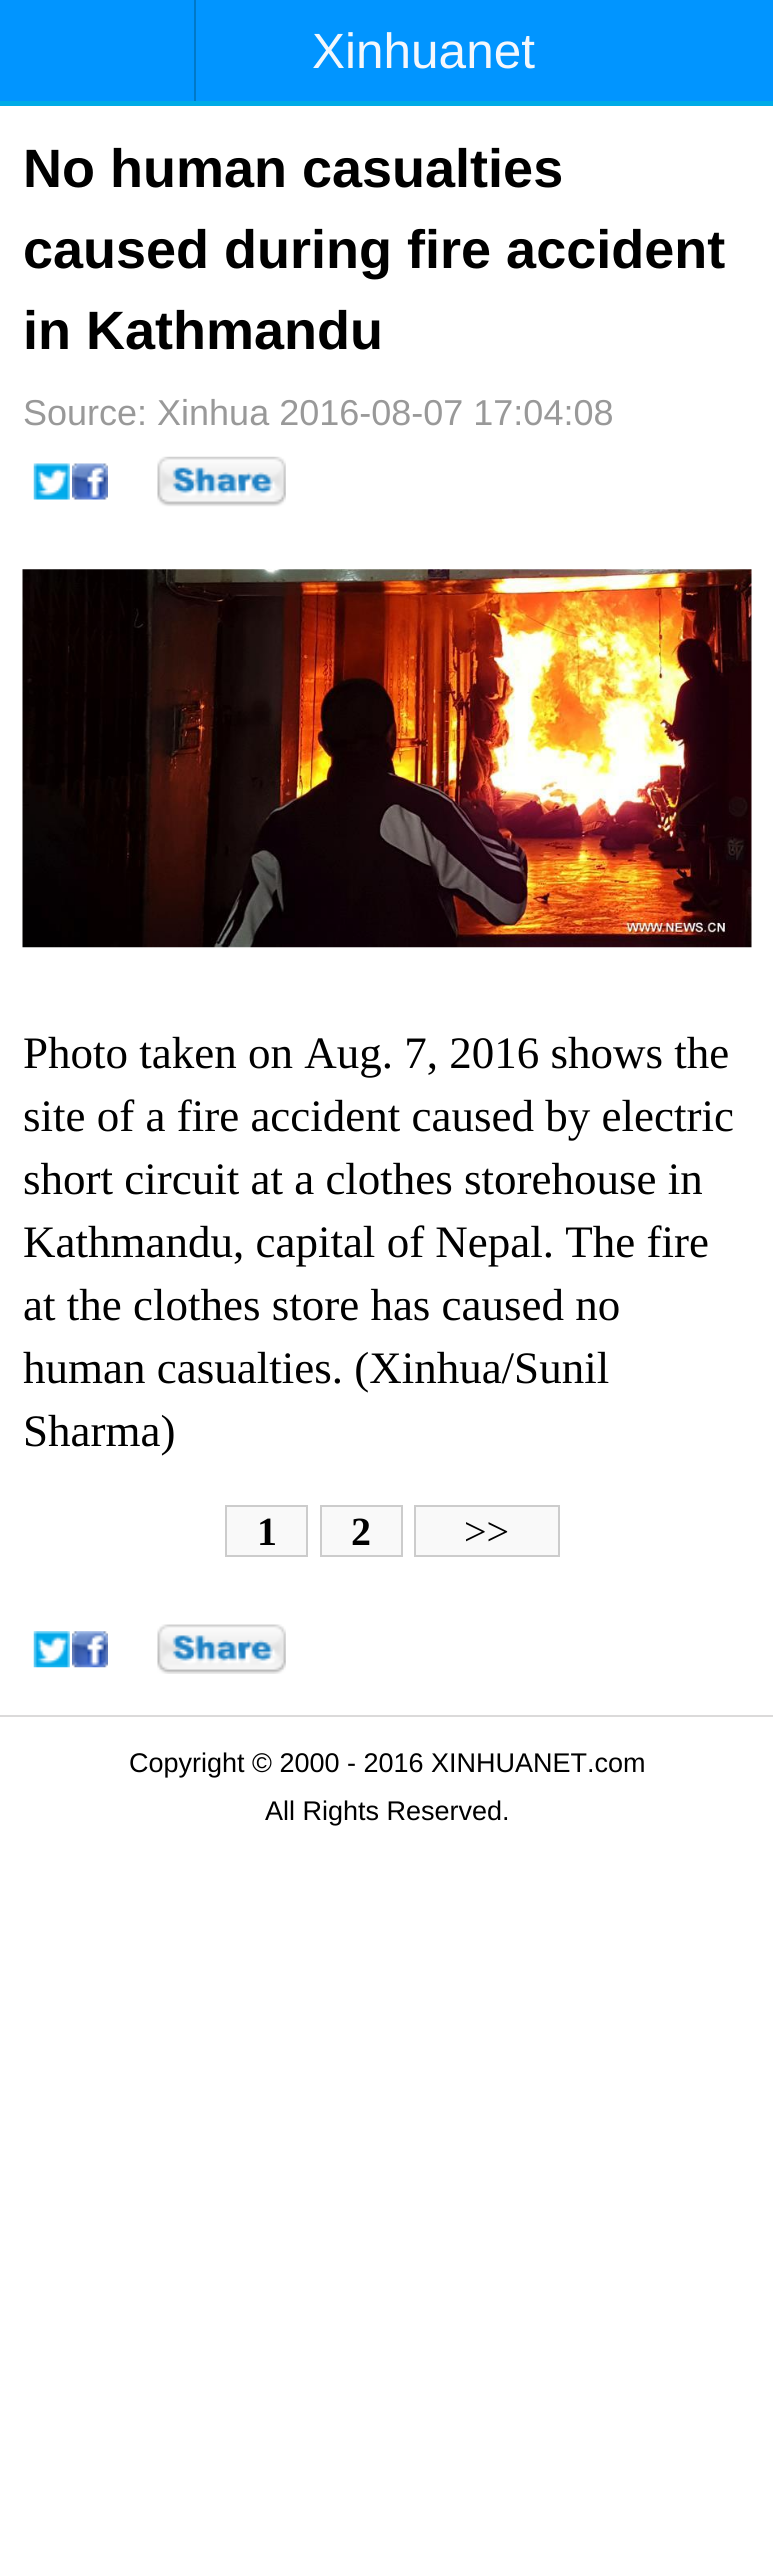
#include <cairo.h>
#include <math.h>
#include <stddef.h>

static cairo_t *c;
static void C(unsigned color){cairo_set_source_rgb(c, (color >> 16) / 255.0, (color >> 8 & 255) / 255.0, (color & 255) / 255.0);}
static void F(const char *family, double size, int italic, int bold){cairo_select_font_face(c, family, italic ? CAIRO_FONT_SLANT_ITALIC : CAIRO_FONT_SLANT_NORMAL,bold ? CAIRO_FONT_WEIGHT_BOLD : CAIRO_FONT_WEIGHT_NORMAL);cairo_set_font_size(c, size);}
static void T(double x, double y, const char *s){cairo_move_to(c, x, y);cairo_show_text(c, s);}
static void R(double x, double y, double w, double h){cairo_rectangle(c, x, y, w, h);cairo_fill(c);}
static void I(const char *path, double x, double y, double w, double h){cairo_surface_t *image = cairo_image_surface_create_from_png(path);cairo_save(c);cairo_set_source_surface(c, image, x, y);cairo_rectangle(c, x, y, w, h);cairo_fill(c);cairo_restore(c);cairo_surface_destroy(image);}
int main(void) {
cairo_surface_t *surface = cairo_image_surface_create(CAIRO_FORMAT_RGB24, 773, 2569);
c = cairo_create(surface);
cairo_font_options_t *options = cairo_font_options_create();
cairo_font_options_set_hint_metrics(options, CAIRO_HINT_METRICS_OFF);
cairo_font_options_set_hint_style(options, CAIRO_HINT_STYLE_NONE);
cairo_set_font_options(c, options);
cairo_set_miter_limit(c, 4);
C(0xffffff);
cairo_paint(c);
C(0x0195ff);
R(0,0,773,101);
C(0x00abe7);
R(0,101,773,5);
C(0x0079c8);
R(194,0,2,101);
F("Liberation Sans",49.5,0,0);
C(0xf4f7fc);
T(312,68,"Xinhuanet");
F("Liberation Sans",54,0,1);
C(0x000000);
T(23,187,"No human casualties");
T(23,268,"caused during fire accident");
T(23,349,"in Kathmandu");
F("Liberation Sans",36,0,0);
C(0x999999);
T(23,425,"Source: Xinhua 2016-08-07 17:04:08");
I("1.png",33,463,37,37);
I("2.png",72,463,36,37);
I("3.png",157,456,129,51);
I("4.png",22,569,730,379);
F("Liberation Serif",45,0,0);
C(0x000000);
T(23,1068,"Photo taken on Aug. 7, 2016 shows the");
T(23,1131,"site of a fire accident caused by electric");
T(23,1194,"short circuit at a clothes storehouse in");
T(23,1257,"Kathmandu, capital of Nepal. The fire");
T(23,1320,"at the clothes store has caused no");
T(23,1383,"human casualties. (Xinhua/Sunil");
T(23,1446,"Sharma)");
C(0xf9f9f9);
cairo_rectangle(c,226,1506,81,50);
cairo_fill_preserve(c);
C(0xcccccc);
cairo_stroke(c);
F("Liberation Serif",40,0,1);
C(0x000000);
T(257,1545,"1");
C(0xf9f9f9);
cairo_rectangle(c,321,1506,81,50);
cairo_fill_preserve(c);
C(0xcccccc);
cairo_stroke(c);
C(0x000000);
T(351,1545,"2");
C(0xf9f9f9);
cairo_rectangle(c,415,1506,144,50);
cairo_fill_preserve(c);
C(0xcccccc);
cairo_stroke(c);
F("Liberation Serif",40,0,0);
C(0x000000);
T(464,1545,">>");
I("5.png",33,1631,37,37);
I("6.png",72,1631,36,37);
I("7.png",157,1624,129,50);
C(0xdbdada);
R(0,1715,773,2);
F("Liberation Sans",27,0,0);
C(0x000000);
T(129,1772,"Copyright © 2000 - 2016 XINHUANET.com");
T(265,1820,"All Rights Reserved.");
cairo_surface_write_to_png(surface, "o.png");
cairo_font_options_destroy(options);
cairo_destroy(c);
cairo_surface_destroy(surface);
return 0;
}
